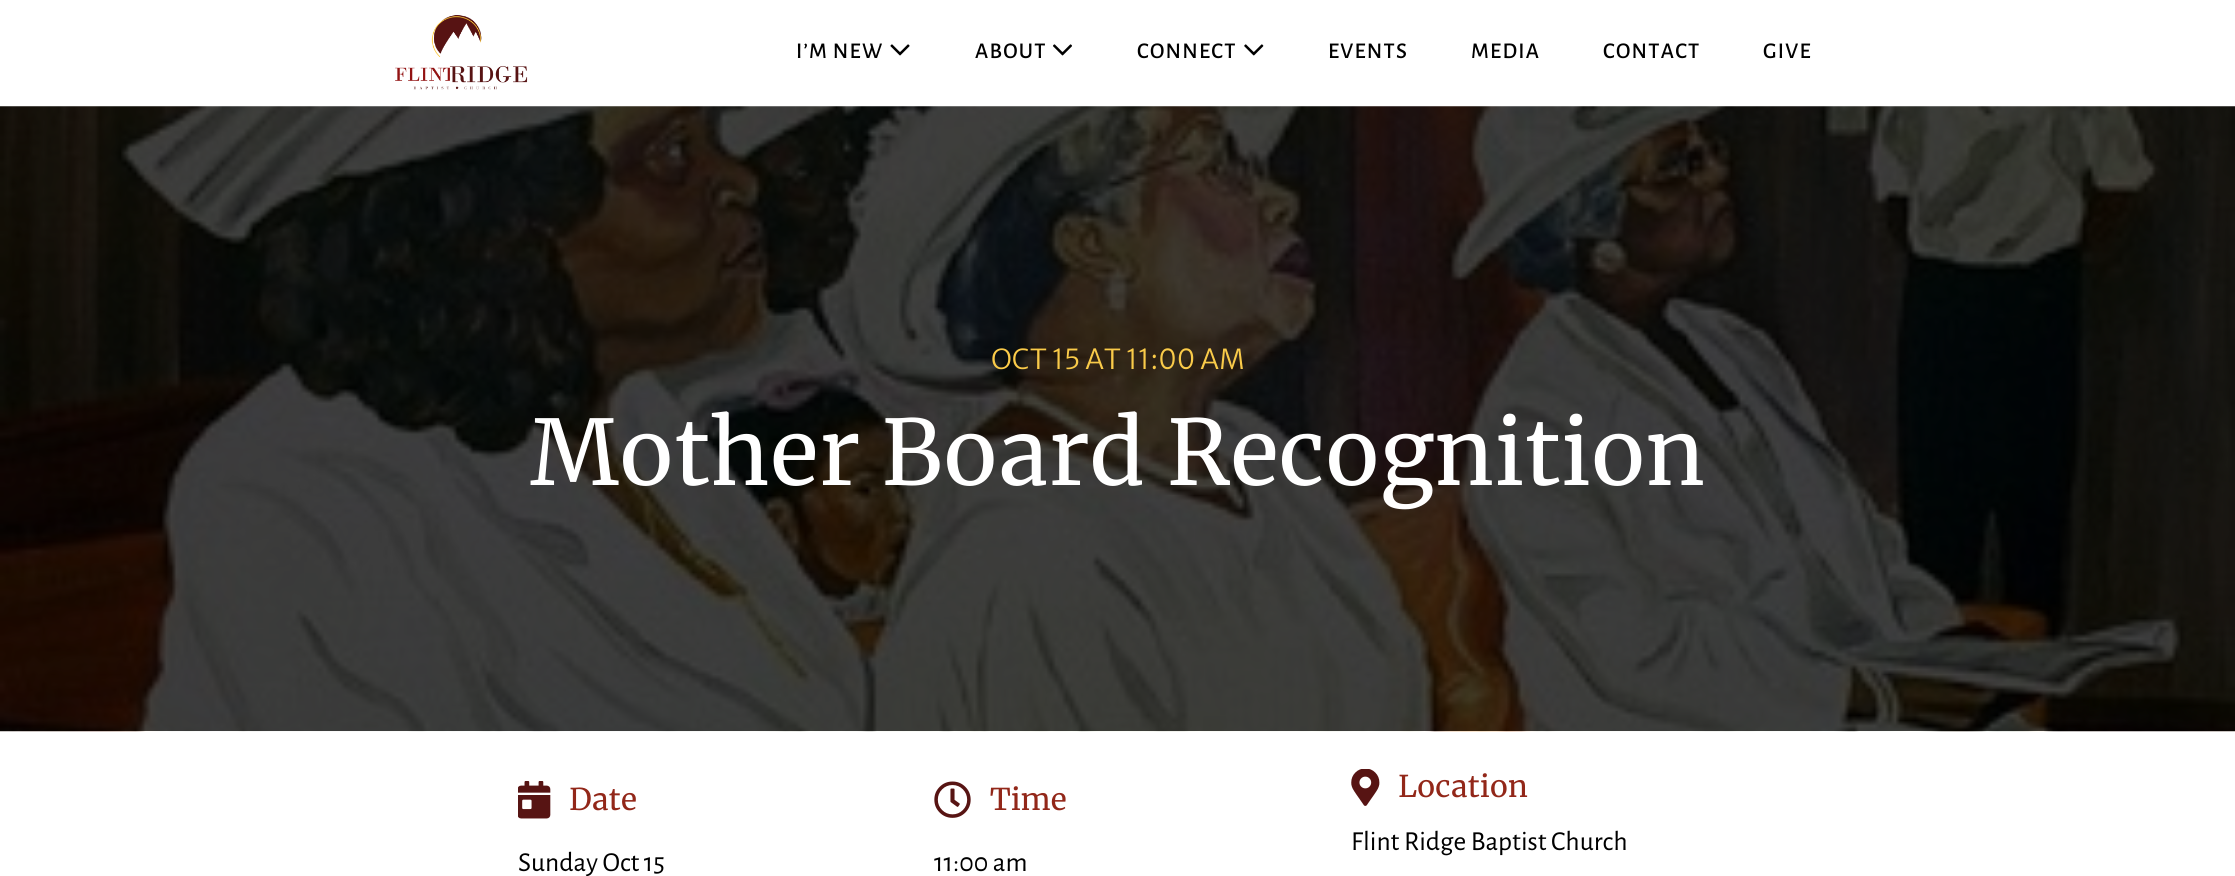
#include <cairo.h>
#include <math.h>
#include <stddef.h>

static cairo_t *c;
static void C(unsigned color){cairo_set_source_rgb(c, (color >> 16) / 255.0, (color >> 8 & 255) / 255.0, (color & 255) / 255.0);}
static void F(const char *family, double size, int italic, int bold){cairo_select_font_face(c, family, italic ? CAIRO_FONT_SLANT_ITALIC : CAIRO_FONT_SLANT_NORMAL,bold ? CAIRO_FONT_WEIGHT_BOLD : CAIRO_FONT_WEIGHT_NORMAL);cairo_set_font_size(c, size);}
static void T(double x, double y, const char *s){cairo_move_to(c, x, y);cairo_show_text(c, s);}
static void L(double x, double y, const char *s, double letter, double word){cairo_move_to(c, x, y);while (*s) {char ch[5] = {0};int n = 0;do ch[n++] = *s++; while ((*s & 0xC0) == 0x80);cairo_show_text(c, ch);cairo_rel_move_to(c, letter + word * (*ch == ' '), 0);}}
static void I(const char *path, double x, double y, double w, double h){cairo_surface_t *image = cairo_image_surface_create_from_png(path);cairo_save(c);cairo_set_source_surface(c, image, x, y);cairo_rectangle(c, x, y, w, h);cairo_fill(c);cairo_restore(c);cairo_surface_destroy(image);}
int main(void) {
cairo_surface_t *surface = cairo_image_surface_create(CAIRO_FORMAT_RGB24, 2235, 876);
c = cairo_create(surface);
cairo_font_options_t *options = cairo_font_options_create();
cairo_font_options_set_hint_metrics(options, CAIRO_HINT_METRICS_OFF);
cairo_font_options_set_hint_style(options, CAIRO_HINT_STYLE_NONE);
cairo_set_font_options(c, options);
cairo_set_miter_limit(c, 4);
C(0xffffff);
cairo_paint(c);
I("1.png",395,15,133,75);
F("Alegreya Sans Medium",22.5,0,0);
C(0x000000);
L(796,58,"I’M NEW",1.25,0);
I("2.png",890,44,20,12);
L(975,58,"ABOUT",1.25,0);
I("3.png",1053,44,19,12);
L(1137,58,"CONNECT",1.25,0);
I("4.png",1244,44,20,12);
L(1328,58,"EVENTS",1.25,0);
L(1471,58,"MEDIA",1.25,0);
L(1603,58,"CONTACT",1.25,0);
L(1763,58,"GIVE",1.25,0);
I("5.png",0,106,2235,626);
F("Merriweather Sans Light",27.5,0,0);
C(0xfacb49);
T(991,369,"OCT 15 AT 11:00 AM");
F("Merriweather",90,0,0);
C(0xffffff);
T(530,485,"Mother Board Recognition");
I("6.png",518,781,33,38);
F("Merriweather",30,0,0);
C(0x922719);
T(569,810,"Date");
F("Alegreya Sans",27.5,0,0);
C(0x000000);
T(518,871,"Sunday Oct 15");
I("7.png",934,781,37,37);
F("Merriweather",30,0,0);
C(0x922719);
T(990,810,"Time");
F("Alegreya Sans",27.5,0,0);
C(0x000000);
T(934,871,"11:00 am");
I("8.png",1351,769,29,37);
F("Merriweather",30,0,0);
C(0x922719);
T(1398,797,"Location");
F("Alegreya Sans",27.5,0,0);
C(0x000000);
T(1351,850,"Flint Ridge Baptist Church");
cairo_surface_write_to_png(surface, "o.png");
cairo_font_options_destroy(options);
cairo_destroy(c);
cairo_surface_destroy(surface);
return 0;
}
